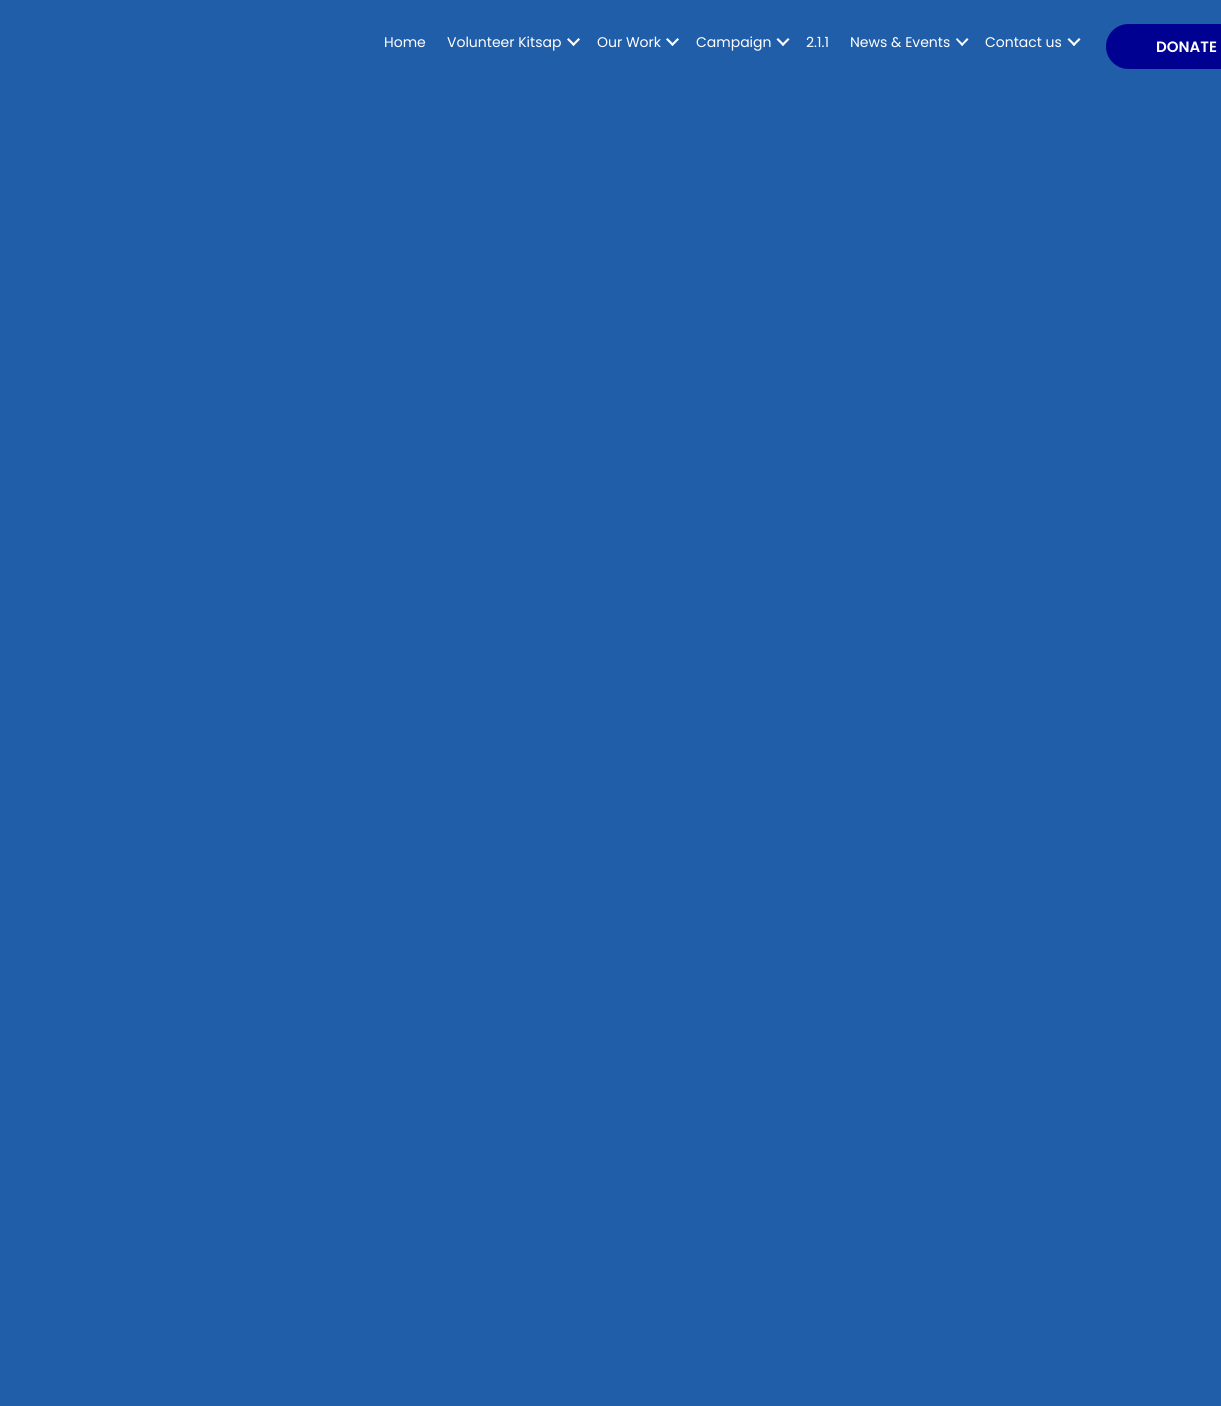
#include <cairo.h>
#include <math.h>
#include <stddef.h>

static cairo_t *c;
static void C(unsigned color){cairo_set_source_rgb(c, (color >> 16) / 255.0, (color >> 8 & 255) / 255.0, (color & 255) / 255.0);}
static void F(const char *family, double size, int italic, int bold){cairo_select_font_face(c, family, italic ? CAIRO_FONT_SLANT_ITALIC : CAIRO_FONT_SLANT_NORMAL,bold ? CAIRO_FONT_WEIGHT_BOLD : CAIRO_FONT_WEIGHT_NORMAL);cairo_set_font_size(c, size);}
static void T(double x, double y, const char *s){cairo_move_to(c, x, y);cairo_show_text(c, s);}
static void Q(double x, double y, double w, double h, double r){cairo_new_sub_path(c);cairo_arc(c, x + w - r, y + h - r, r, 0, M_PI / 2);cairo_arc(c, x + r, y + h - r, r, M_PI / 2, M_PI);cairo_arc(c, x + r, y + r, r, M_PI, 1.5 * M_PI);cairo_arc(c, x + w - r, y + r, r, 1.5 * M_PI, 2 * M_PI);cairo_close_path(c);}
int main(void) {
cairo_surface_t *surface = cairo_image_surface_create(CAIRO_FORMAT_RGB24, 1221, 1406);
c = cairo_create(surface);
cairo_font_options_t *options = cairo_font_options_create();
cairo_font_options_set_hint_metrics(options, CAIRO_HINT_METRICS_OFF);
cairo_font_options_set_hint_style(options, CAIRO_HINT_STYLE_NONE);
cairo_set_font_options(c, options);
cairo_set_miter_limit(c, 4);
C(0x205ea9);
cairo_paint(c);
F("Poppins",14,0,0);
C(0xffffff);
T(384,47,"Home");
T(447,47,"Volunteer Kitsap");
cairo_new_path(c);
cairo_move_to(c,578.5,38);
cairo_line_to(c,580,39.5);
cairo_line_to(c,573.5,46);
cairo_line_to(c,572,44.5);
cairo_close_path(c);
cairo_fill(c);
cairo_new_path(c);
cairo_move_to(c,568.5,38);
cairo_line_to(c,575,44.5);
cairo_line_to(c,573.5,46);
cairo_line_to(c,567,39.5);
cairo_close_path(c);
cairo_fill(c);
T(597,47,"Our Work");
cairo_new_path(c);
cairo_move_to(c,677.5,38);
cairo_line_to(c,679,39.5);
cairo_line_to(c,672.5,46);
cairo_line_to(c,671,44.5);
cairo_close_path(c);
cairo_fill(c);
cairo_new_path(c);
cairo_move_to(c,667.5,38);
cairo_line_to(c,674,44.5);
cairo_line_to(c,672.5,46);
cairo_line_to(c,666,39.5);
cairo_close_path(c);
cairo_fill(c);
T(696,47,"Campaign");
cairo_new_path(c);
cairo_move_to(c,788,38);
cairo_line_to(c,789.5,39.5);
cairo_line_to(c,783,46);
cairo_line_to(c,781.5,44.5);
cairo_close_path(c);
cairo_fill(c);
cairo_new_path(c);
cairo_move_to(c,778,38);
cairo_line_to(c,784.5,44.5);
cairo_line_to(c,783,46);
cairo_line_to(c,776.5,39.5);
cairo_close_path(c);
cairo_fill(c);
T(806,47,"2.1.1");
T(850,47,"News & Events");
cairo_new_path(c);
cairo_move_to(c,967,38);
cairo_line_to(c,968.5,39.5);
cairo_line_to(c,962,46);
cairo_line_to(c,961,44.5);
cairo_close_path(c);
cairo_fill(c);
cairo_new_path(c);
cairo_move_to(c,957,38);
cairo_line_to(c,963.5,44.5);
cairo_line_to(c,962,46);
cairo_line_to(c,956,39.5);
cairo_close_path(c);
cairo_fill(c);
T(985,47,"Contact us");
cairo_new_path(c);
cairo_move_to(c,1079,38);
cairo_line_to(c,1080.5,39.5);
cairo_line_to(c,1074,46);
cairo_line_to(c,1072.5,44.5);
cairo_close_path(c);
cairo_fill(c);
cairo_new_path(c);
cairo_move_to(c,1069,38);
cairo_line_to(c,1075.5,44.5);
cairo_line_to(c,1074,46);
cairo_line_to(c,1067.5,39.5);
cairo_close_path(c);
cairo_fill(c);
C(0x000091);
Q(1106,24,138,45,22.5);
cairo_fill(c);
F("Poppins SemiBold",15,0,0);
C(0xffffff);
T(1156,52,"DONATE");
cairo_surface_write_to_png(surface, "o.png");
cairo_font_options_destroy(options);
cairo_destroy(c);
cairo_surface_destroy(surface);
return 0;
}
